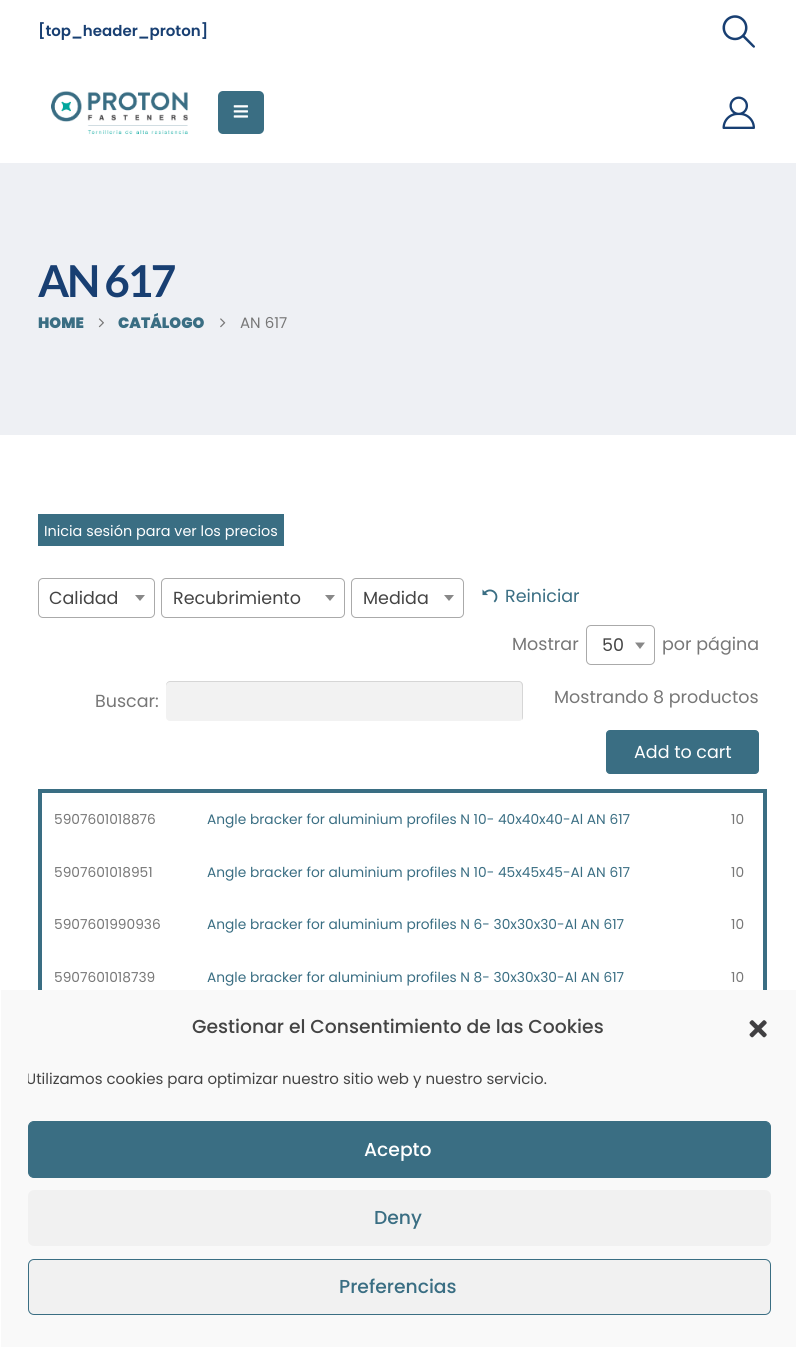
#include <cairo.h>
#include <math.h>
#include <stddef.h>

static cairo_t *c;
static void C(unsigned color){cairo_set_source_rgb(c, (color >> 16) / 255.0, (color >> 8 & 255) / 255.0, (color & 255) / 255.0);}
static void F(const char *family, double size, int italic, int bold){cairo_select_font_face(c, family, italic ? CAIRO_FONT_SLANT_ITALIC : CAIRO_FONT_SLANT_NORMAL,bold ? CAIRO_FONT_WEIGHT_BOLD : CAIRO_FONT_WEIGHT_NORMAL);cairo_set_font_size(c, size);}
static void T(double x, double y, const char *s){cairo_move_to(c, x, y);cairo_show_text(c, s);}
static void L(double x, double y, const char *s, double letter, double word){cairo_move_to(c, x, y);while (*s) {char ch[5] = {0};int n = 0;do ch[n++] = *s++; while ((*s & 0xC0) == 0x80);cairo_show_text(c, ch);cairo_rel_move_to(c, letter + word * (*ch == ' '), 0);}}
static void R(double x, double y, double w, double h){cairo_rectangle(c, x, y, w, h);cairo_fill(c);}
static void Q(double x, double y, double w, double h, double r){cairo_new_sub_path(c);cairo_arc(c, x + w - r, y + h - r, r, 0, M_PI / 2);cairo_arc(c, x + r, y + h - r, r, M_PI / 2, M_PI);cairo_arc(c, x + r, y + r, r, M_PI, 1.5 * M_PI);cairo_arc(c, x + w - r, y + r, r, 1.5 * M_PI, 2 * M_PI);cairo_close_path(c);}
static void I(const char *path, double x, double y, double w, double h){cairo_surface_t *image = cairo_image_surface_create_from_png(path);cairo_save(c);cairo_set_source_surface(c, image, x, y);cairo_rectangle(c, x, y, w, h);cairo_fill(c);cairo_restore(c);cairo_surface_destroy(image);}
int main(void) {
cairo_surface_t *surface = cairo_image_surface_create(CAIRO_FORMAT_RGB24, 796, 1347);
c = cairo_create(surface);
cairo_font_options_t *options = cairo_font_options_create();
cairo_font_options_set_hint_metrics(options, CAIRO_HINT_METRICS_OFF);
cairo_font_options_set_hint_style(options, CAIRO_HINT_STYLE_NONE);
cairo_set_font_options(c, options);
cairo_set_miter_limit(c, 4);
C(0xffffff);
cairo_paint(c);
F("Poppins SemiBold",15,0,0);
C(0x183f72);
T(38,36,"[top_header_proton]");
I("1.png",722,15,33,33);
I("2.png",51,91,137,44);
C(0x3a6e83);
Q(218,91,46,43,5);
cairo_fill(c);
I("3.png",233,105,15,13);
I("4.png",722,96,33,33);
C(0xeef0f4);
R(0,163,796,272);
F("Lato",44,0,1);
C(0x183f72);
L(38,297,"AN 617",-2.25,0);
F("Poppins Black",15,0,0);
C(0x3a6e83);
T(38,328,"HOME");
I("5.png",98,318,6,10);
T(118,328,"CATÁLOGO");
I("6.png",220,318,6,10);
F("Poppins",15,0,0);
C(0x777777);
T(240,328,"AN 617");
C(0x3a6e83);
R(38,514,246,32);
F("Poppins",14.4,0,0);
C(0xffffff);
T(44,536,"Inicia sesión para ver los precios");
Q(38.5,578.5,116,39,4.5);
C(0xaaaaaa);
cairo_set_line_width(c,1);
cairo_stroke(c);
F("Poppins",17.5,0,0);
C(0x444444);
T(49,604,"Calidad");
C(0x888888);
cairo_new_path(c);
cairo_move_to(c,135,595);
cairo_line_to(c,145,595);
cairo_line_to(c,140,601);
cairo_close_path(c);
cairo_fill(c);
Q(161.5,578.5,183,39,4.5);
C(0xaaaaaa);
cairo_stroke(c);
C(0x444444);
T(173,604,"Recubrimiento");
C(0x888888);
cairo_new_path(c);
cairo_move_to(c,325,595);
cairo_line_to(c,335,595);
cairo_line_to(c,330,601);
cairo_close_path(c);
cairo_fill(c);
Q(351.5,578.5,112,39,4.5);
C(0xaaaaaa);
cairo_stroke(c);
C(0x444444);
T(363,604,"Medida");
C(0x888888);
cairo_new_path(c);
cairo_move_to(c,444,595);
cairo_line_to(c,454,595);
cairo_line_to(c,449,601);
cairo_close_path(c);
cairo_fill(c);
I("7.png",482,589,16,14);
C(0x3a6e83);
T(505,602,"Reiniciar");
C(0x777777);
T(512,650,"Mostrar");
Q(586.5,625.5,68,39,4.5);
C(0xaaaaaa);
cairo_stroke(c);
C(0x444444);
T(602,651,"50");
C(0x888888);
cairo_new_path(c);
cairo_move_to(c,635,642.5);
cairo_line_to(c,645,642.5);
cairo_line_to(c,640,649);
cairo_close_path(c);
cairo_fill(c);
C(0x777777);
T(662,650,"por página");
T(95,707,"Buscar:");
C(0xf2f2f2);
Q(166,681,357,40,4);
cairo_fill(c);
cairo_set_source_rgba(c,0,0,0,0.12);
cairo_new_path(c);
cairo_move_to(c,170,682);
cairo_line_to(c,519,682);
cairo_curve_to(c,521,682,522,684,522,686);
cairo_line_to(c,522,720);
cairo_curve_to(c,523,719,523,718,523,717);
cairo_line_to(c,523,685);
cairo_curve_to(c,523,683,521,681,519,681);
cairo_line_to(c,170,681);
cairo_curve_to(c,168,681,166,683,166,685);
cairo_line_to(c,166,686);
cairo_curve_to(c,166,684,168,682,170,682);
cairo_close_path(c);
cairo_fill(c);
C(0x777777);
T(554,703,"Mostrando 8 productos");
C(0x3a6e83);
Q(606.5,730.5,152,43,3.5);
cairo_fill_preserve(c);
cairo_stroke(c);
C(0xffffff);
T(634,758,"Add to cart");
C(0x3a6e83);
R(38,789,728,4);
R(763,789,4,201);
R(38,789,4,201);
F("Poppins",13.75,0,0);
C(0x777777);
T(54,824,"5907601018876");
C(0x3a6e83);
T(207,824,"Angle bracker for aluminium profiles N 10- 40x40x40-Al AN 617");
C(0x777777);
T(731,824,"10");
T(54,877,"5907601018951");
C(0x3a6e83);
T(207,877,"Angle bracker for aluminium profiles N 10- 45x45x45-Al AN 617");
C(0x777777);
T(731,877,"10");
T(54,929,"5907601990936");
C(0x3a6e83);
T(207,929,"Angle bracker for aluminium profiles N 6- 30x30x30-Al AN 617");
C(0x777777);
T(731,929,"10");
T(54,982,"5907601018739");
C(0x3a6e83);
T(207,982,"Angle bracker for aluminium profiles N 8- 30x30x30-Al AN 617");
C(0x777777);
T(731,982,"10");
C(0xf9f9f9);
R(1,990,795,357);
F("Poppins Medium",18.75,0,0);
C(0x444444);
T(192,1033,"Gestionar el Consentimiento de las Cookies");
I("8.png",749,1020,18,18);
cairo_save(c);
cairo_rectangle(c,28,1068,743,28);
cairo_clip(c);
F("Poppins",15,0,0);
T(26,1084,"Utilizamos cookies para optimizar nuestro sitio web y nuestro servicio.");
cairo_restore(c);
C(0x3a6e83);
Q(28.5,1121.5,742,56,5.5);
cairo_fill_preserve(c);
cairo_stroke(c);
C(0xffffff);
T(364,1156,"Acepto");
C(0xf1f1f1);
Q(28,1190,743,56,6);
cairo_fill(c);
C(0x3a6e83);
T(374,1224,"Deny");
C(0xf1f1f1);
Q(28.5,1259.5,742,55,5.5);
cairo_fill_preserve(c);
C(0x3a6e83);
cairo_stroke(c);
T(339,1293,"Preferencias");
cairo_surface_write_to_png(surface, "o.png");
cairo_font_options_destroy(options);
cairo_destroy(c);
cairo_surface_destroy(surface);
return 0;
}
